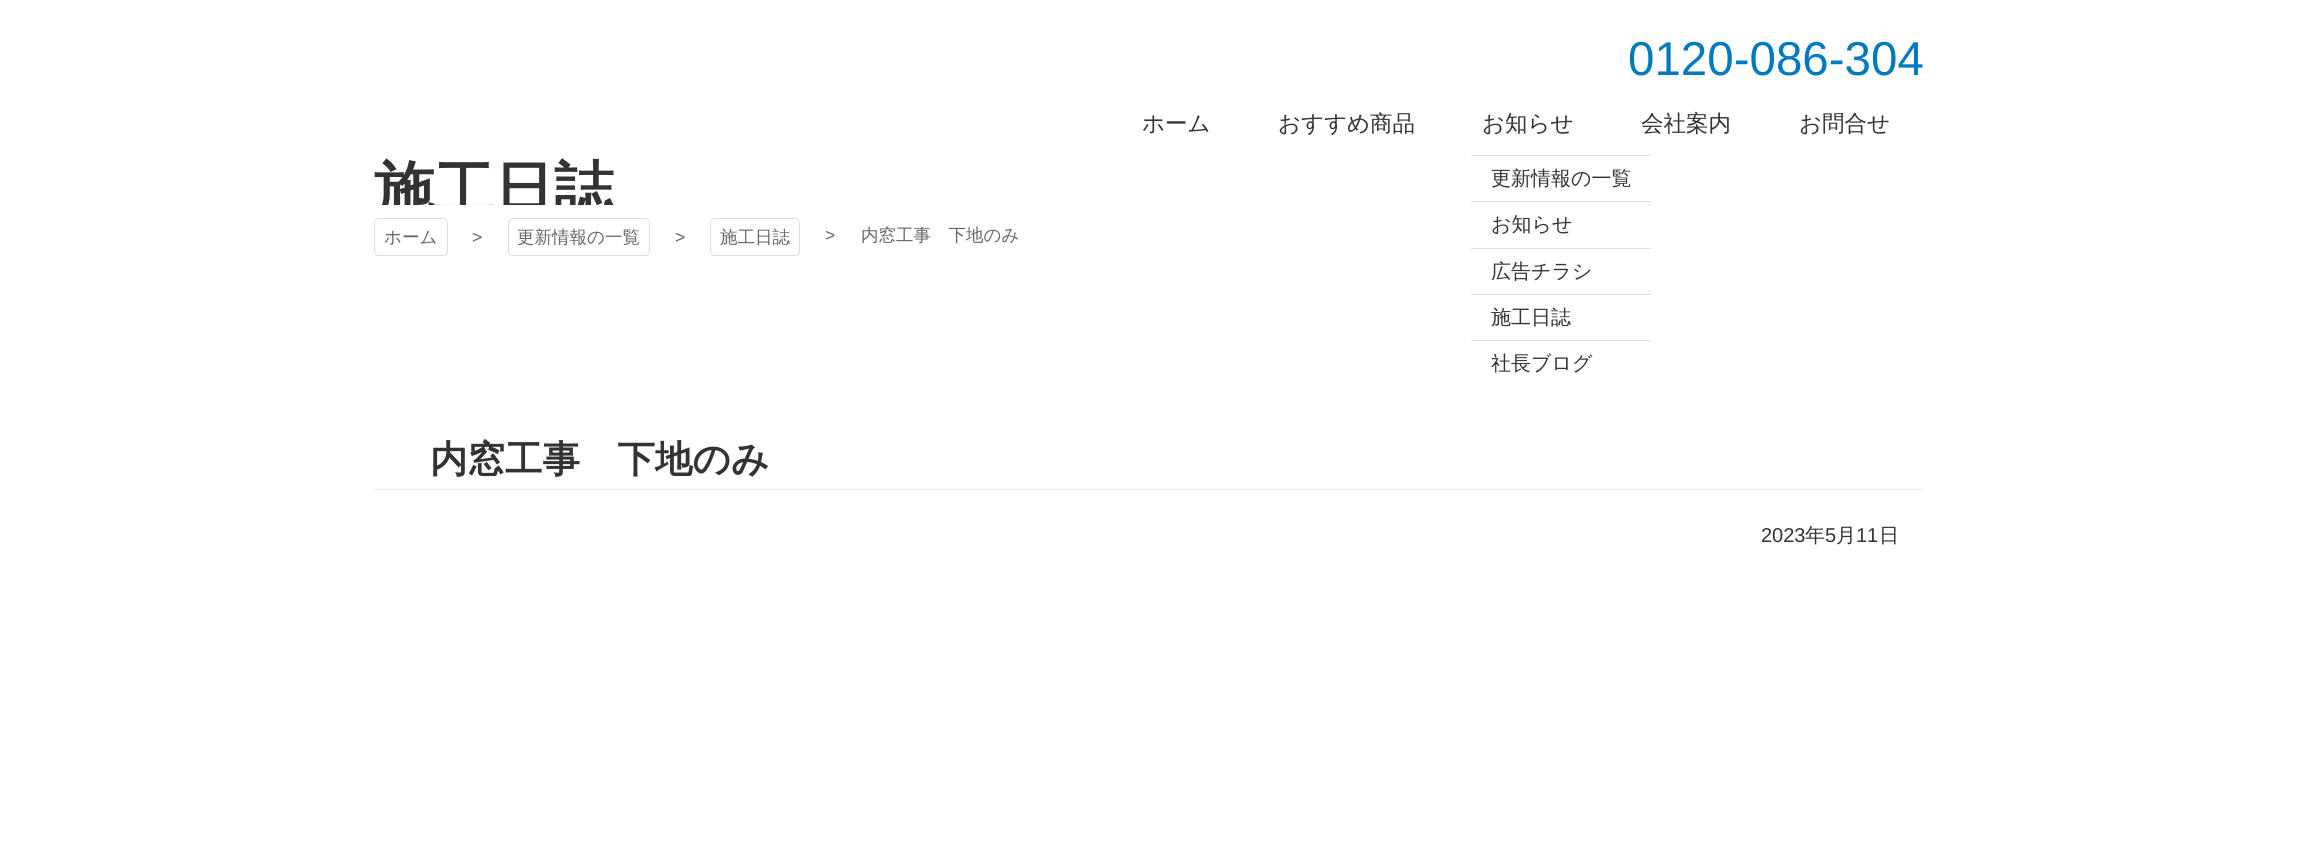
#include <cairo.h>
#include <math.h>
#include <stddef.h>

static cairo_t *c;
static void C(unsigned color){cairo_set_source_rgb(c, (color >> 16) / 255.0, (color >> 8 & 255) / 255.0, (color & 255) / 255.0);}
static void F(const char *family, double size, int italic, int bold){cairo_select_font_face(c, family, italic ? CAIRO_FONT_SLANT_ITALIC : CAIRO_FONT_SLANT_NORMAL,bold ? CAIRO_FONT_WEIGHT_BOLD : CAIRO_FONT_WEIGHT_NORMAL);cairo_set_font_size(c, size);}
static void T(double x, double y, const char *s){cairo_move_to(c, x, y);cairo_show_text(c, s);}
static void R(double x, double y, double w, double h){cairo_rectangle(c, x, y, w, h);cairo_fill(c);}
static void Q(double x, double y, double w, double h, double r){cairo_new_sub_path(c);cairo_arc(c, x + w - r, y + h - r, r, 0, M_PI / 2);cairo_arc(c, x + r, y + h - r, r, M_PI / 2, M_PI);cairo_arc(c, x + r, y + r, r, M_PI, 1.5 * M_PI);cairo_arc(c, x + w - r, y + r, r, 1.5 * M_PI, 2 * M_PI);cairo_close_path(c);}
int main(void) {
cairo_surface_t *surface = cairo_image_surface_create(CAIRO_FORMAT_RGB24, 2297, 842);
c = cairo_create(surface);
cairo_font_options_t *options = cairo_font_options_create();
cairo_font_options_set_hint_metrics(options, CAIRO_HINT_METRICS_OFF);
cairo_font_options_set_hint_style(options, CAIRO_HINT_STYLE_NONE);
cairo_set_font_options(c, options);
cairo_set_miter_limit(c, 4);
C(0xffffff);
cairo_paint(c);
cairo_save(c);
cairo_rectangle(c,0,0,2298,205);
cairo_clip(c);
F("WenQuanYi Zen Hei",60,0,1);
C(0x333333);
T(374,210,"施工日誌");
cairo_restore(c);
F("Liberation Sans",47.5,0,0);
C(0x007abe);
T(1628,75,"0120-086-304");
F("WenQuanYi Zen Hei Medium",22.5,0,0);
C(0x333333);
T(1142,131,"ホーム");
T(1278,131,"おすすめ商品");
T(1482,131,"お知らせ");
C(0xdddddd);
R(1471,155,180,1);
F("WenQuanYi Zen Hei Medium",20,0,0);
C(0x333333);
T(1491,185,"更新情報の一覧");
C(0xdddddd);
R(1471,201,180,1);
C(0x333333);
T(1491,231,"お知らせ");
C(0xdddddd);
R(1471,248,180,1);
C(0x333333);
T(1491,278,"広告チラシ");
C(0xdddddd);
R(1471,294,180,1);
C(0x333333);
T(1491,324,"施工日誌");
C(0xdddddd);
R(1471,340,180,1);
C(0x333333);
T(1491,370,"社長ブログ");
F("WenQuanYi Zen Hei Medium",22.5,0,0);
T(1641,131,"会社案内");
T(1799,131,"お問合せ");
Q(374.5,218.5,73,37,4.5);
C(0xdddddd);
cairo_set_line_width(c,1);
cairo_stroke(c);
F("WenQuanYi Zen Hei Medium",17.5,0,0);
C(0x666666);
T(384,243,"ホーム");
F("Liberation Sans",17.5,0,0);
T(472,243,">");
Q(508.5,218.5,141,37,4.5);
C(0xdddddd);
cairo_stroke(c);
F("WenQuanYi Zen Hei Medium",17.5,0,0);
C(0x666666);
T(517,243,"更新情報の一覧");
F("Liberation Sans",17.5,0,0);
T(675,243,">");
Q(710.5,218.5,89,37,4.5);
C(0xdddddd);
cairo_stroke(c);
F("WenQuanYi Zen Hei Medium",17.5,0,0);
C(0x666666);
T(720,243,"施工日誌");
F("Liberation Sans",17.5,0,0);
T(825,241,">");
F("WenQuanYi Zen Hei Medium",17.5,0,0);
T(861,241,"内窓工事　下地のみ");
C(0xddf1f9);
R(374,489,1550,1);
F("WenQuanYi Zen Hei",37.5,0,1);
C(0x333333);
T(430,472,"内窓工事　下地のみ");
F("Liberation Sans",20,0,0);
T(1761,542,"2023");
F("WenQuanYi Zen Hei Medium",20,0,0);
T(1805,542,"年");
F("Liberation Sans",20,0,0);
T(1825,542,"5");
F("WenQuanYi Zen Hei Medium",20,0,0);
T(1836,542,"月");
F("Liberation Sans",20,0,0);
T(1856,542,"11");
F("WenQuanYi Zen Hei Medium",20,0,0);
T(1879,542,"日");
cairo_surface_write_to_png(surface, "o.png");
cairo_font_options_destroy(options);
cairo_destroy(c);
cairo_surface_destroy(surface);
return 0;
}
